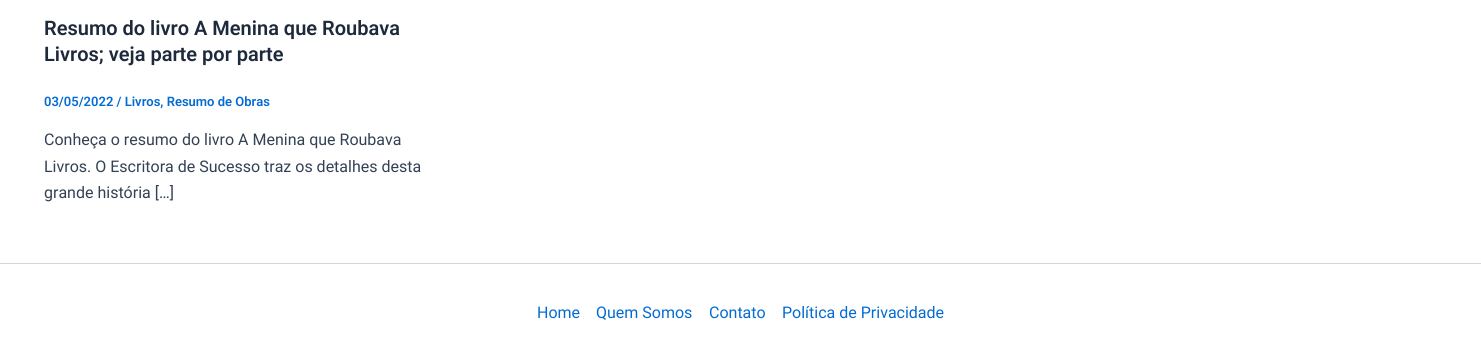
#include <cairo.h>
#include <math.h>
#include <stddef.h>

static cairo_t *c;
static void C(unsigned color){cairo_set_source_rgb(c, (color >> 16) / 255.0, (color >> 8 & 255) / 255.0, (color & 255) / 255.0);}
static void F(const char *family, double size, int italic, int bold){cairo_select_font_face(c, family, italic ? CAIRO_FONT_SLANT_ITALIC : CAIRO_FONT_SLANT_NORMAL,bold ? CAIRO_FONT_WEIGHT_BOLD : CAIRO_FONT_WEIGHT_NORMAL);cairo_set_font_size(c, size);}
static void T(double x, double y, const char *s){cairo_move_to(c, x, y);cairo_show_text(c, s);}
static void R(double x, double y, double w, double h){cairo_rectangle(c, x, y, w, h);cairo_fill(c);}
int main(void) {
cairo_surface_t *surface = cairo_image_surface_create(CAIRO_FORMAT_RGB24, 1481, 355);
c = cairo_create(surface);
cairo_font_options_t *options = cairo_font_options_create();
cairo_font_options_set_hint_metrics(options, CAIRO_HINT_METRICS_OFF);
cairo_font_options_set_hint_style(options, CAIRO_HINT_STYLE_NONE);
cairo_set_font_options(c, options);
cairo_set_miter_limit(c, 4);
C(0xffffff);
cairo_paint(c);
F("Roboto SemiBold",20,0,0);
C(0x1e293b);
T(44,35,"Resumo do livro A Menina que Roubava");
T(44,61,"Livros; veja parte por parte");
F("Roboto SemiBold",13,0,0);
C(0x046bd2);
T(44,106,"03/05/2022 / Livros, Resumo de Obras");
F("Roboto",16,0,0);
C(0x334155);
T(44,145,"Conheça o resumo do livro A Menina que Roubava");
T(44,172,"Livros. O Escritora de Sucesso traz os detalhes desta");
T(44,198,"grande história […]");
C(0xd1d5db);
R(0,263,1481,1);
C(0x046bd2);
T(537,318,"Home");
T(596,318,"Quem Somos");
T(709,318,"Contato");
T(782,318,"Política de Privacidade");
cairo_surface_write_to_png(surface, "o.png");
cairo_font_options_destroy(options);
cairo_destroy(c);
cairo_surface_destroy(surface);
return 0;
}
